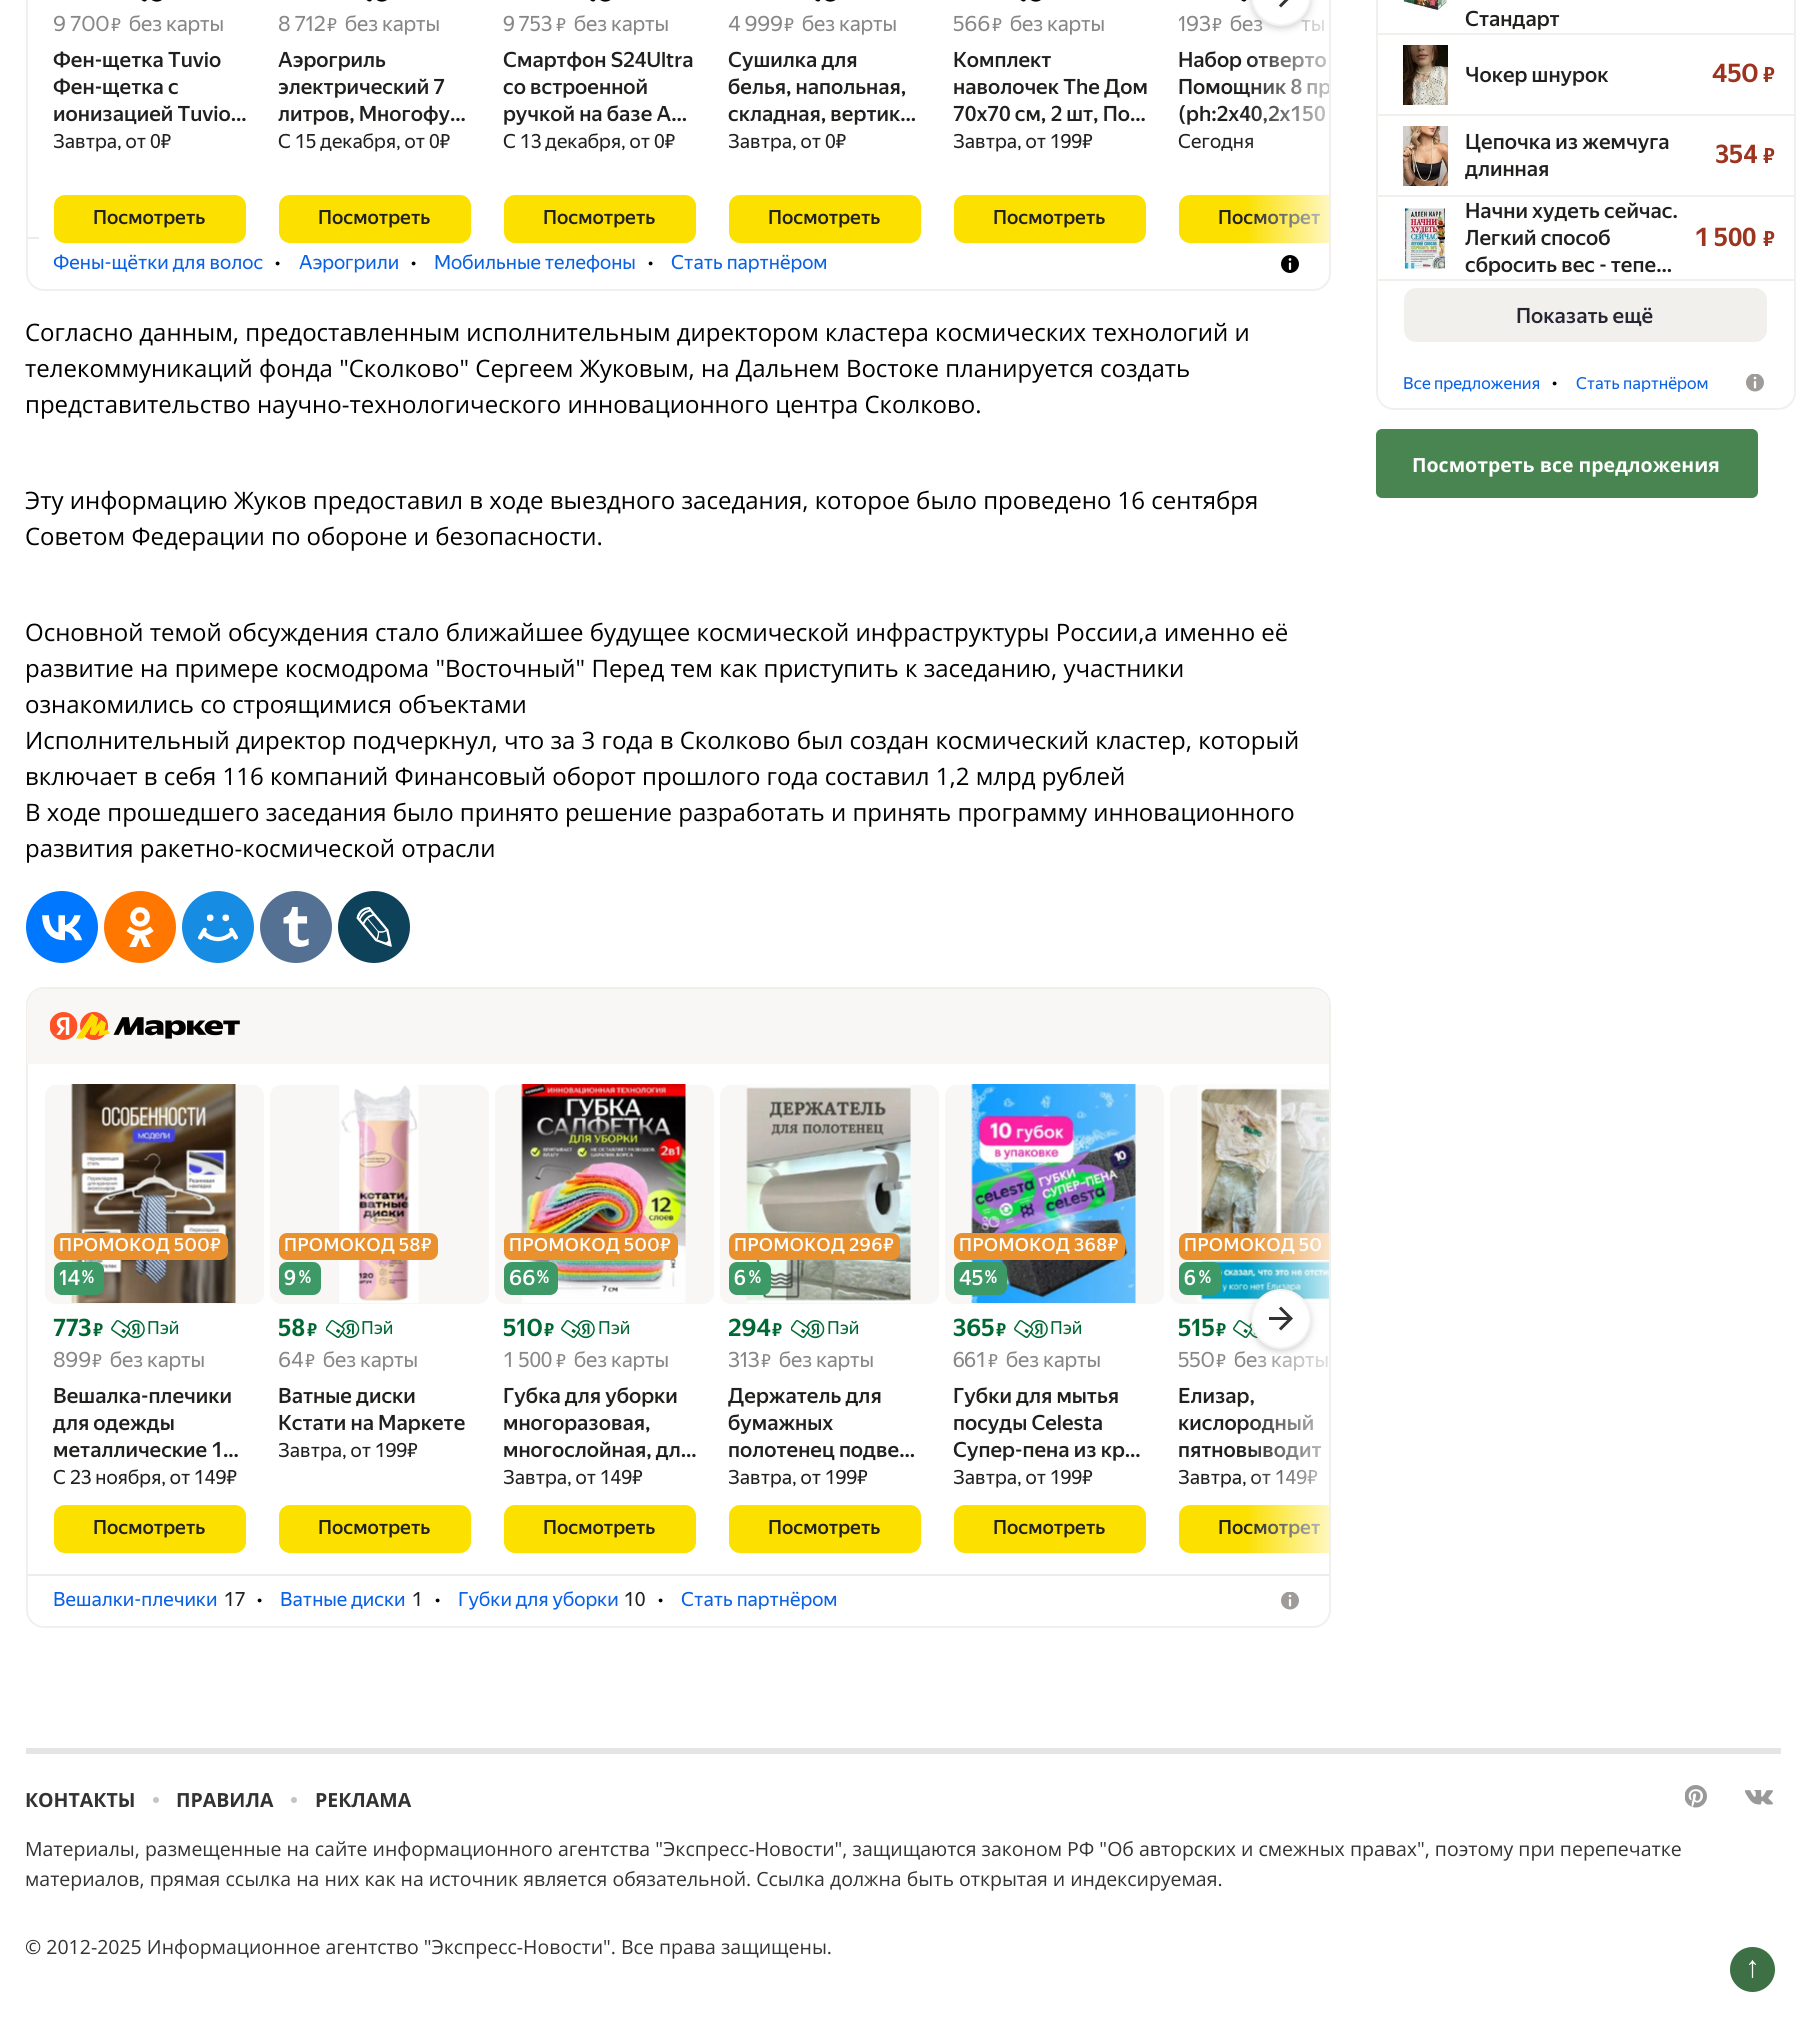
#include <cairo.h>
#include <math.h>
#include <stddef.h>

static cairo_t *c;
static void C(unsigned color){cairo_set_source_rgb(c, (color >> 16) / 255.0, (color >> 8 & 255) / 255.0, (color & 255) / 255.0);}
static void F(const char *family, double size, int italic, int bold){cairo_select_font_face(c, family, italic ? CAIRO_FONT_SLANT_ITALIC : CAIRO_FONT_SLANT_NORMAL,bold ? CAIRO_FONT_WEIGHT_BOLD : CAIRO_FONT_WEIGHT_NORMAL);cairo_set_font_size(c, size);}
static void T(double x, double y, const char *s){cairo_move_to(c, x, y);cairo_show_text(c, s);}
static void L(double x, double y, const char *s, double letter, double word){cairo_move_to(c, x, y);while (*s) {char ch[5] = {0};int n = 0;do ch[n++] = *s++; while ((*s & 0xC0) == 0x80);cairo_show_text(c, ch);cairo_rel_move_to(c, letter + word * (*ch == ' '), 0);}}
static void R(double x, double y, double w, double h){cairo_rectangle(c, x, y, w, h);cairo_fill(c);}
static void Q(double x, double y, double w, double h, double r){cairo_new_sub_path(c);cairo_arc(c, x + w - r, y + h - r, r, 0, M_PI / 2);cairo_arc(c, x + r, y + h - r, r, M_PI / 2, M_PI);cairo_arc(c, x + r, y + r, r, M_PI, 1.5 * M_PI);cairo_arc(c, x + w - r, y + r, r, 1.5 * M_PI, 2 * M_PI);cairo_close_path(c);}
static void S(double x, double y, double w, double h, double r, double blur, double alpha){cairo_push_group_with_content(c, CAIRO_CONTENT_ALPHA);cairo_set_operator(c, CAIRO_OPERATOR_SOURCE);for (int i = 15; i >= -15 && fmin(w, h) + blur * i / 3 > 0; i -= 2) {double e = blur * i / 6;cairo_set_source_rgba(c, 0, 0, 0, alpha * erfc((i - 1) / 8.5) / 2);Q(x - e, y - e, w + 2 * e, h + 2 * e, fmax(0, fmin(r + e + blur * .6, fmin(w, h) / 2 + e)));cairo_fill(c);}cairo_pattern_t *soft = cairo_pop_group(c);cairo_mask(c, soft);cairo_pattern_destroy(soft);}
static void I(const char *path, double x, double y, double w, double h){cairo_surface_t *image = cairo_image_surface_create_from_png(path);cairo_save(c);cairo_set_source_surface(c, image, x, y);cairo_rectangle(c, x, y, w, h);cairo_fill(c);cairo_restore(c);cairo_surface_destroy(image);}
int main(void) {
cairo_surface_t *surface = cairo_image_surface_create(CAIRO_FORMAT_RGB24, 1804, 2021);
c = cairo_create(surface);
cairo_font_options_t *options = cairo_font_options_create();
cairo_font_options_set_hint_metrics(options, CAIRO_HINT_METRICS_OFF);
cairo_font_options_set_hint_style(options, CAIRO_HINT_STYLE_NONE);
cairo_set_font_options(c, options);
cairo_set_miter_limit(c, 4);
cairo_pattern_t *gradient;
C(0xffffff);
cairo_paint(c);
Q(27,-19,1303,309,17);
C(0xf1f0ed);
cairo_stroke(c);
I("4.png",1241,0,11,2);
F("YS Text",21,0,0);
C(0x878787);
L(1230,31,"без",-.25,0);
L(1301,31,"ты",-.25,0);
F("YS Text Medium",21,0,0);
C(0x21201f);
T(1178,67,"Набор отверто");
cairo_save(c);
Q(27,-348,1302,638,17);
cairo_clip(c);
T(1178,94,"Помощник 8 пр");
cairo_restore(c);
T(1178,121,"(ph:2x40,2x150");
F("YS Text",19.5,0,0);
T(1178,148,"Сегодня");
C(0xfce000);
cairo_new_path(c);
cairo_move_to(c,1190,195);
cairo_line_to(c,1329,195);
cairo_line_to(c,1329,243);
cairo_line_to(c,1190,243);
cairo_curve_to(c,1184,243,1179,238,1179,232);
cairo_line_to(c,1179,206);
cairo_curve_to(c,1179,200,1184,195,1190,195);
cairo_close_path(c);
cairo_fill(c);
F("YS Text Medium",19.5,0,0);
C(0x21201f);
T(1218,224,"Посмотрет");
gradient = cairo_pattern_create_linear(1335,-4.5,1245,-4.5);
cairo_pattern_add_color_stop_rgba(gradient,0,1,1,1,.8);
cairo_pattern_add_color_stop_rgba(gradient,1,1,1,1,0);
cairo_set_source(c,gradient);
cairo_pattern_destroy(gradient);
R(1247,0,82,243);
C(0x000000);
S(1251,-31,60,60,30,3,.12);
S(1251,-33,60,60,30,6,.06);
C(0xffffff);
Q(1252,-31,58,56,29);
cairo_fill_preserve(c);
C(0xf5f4f2);
cairo_stroke(c);
I("1.png",1279,0,10,8);
I("2.png",141,0,21,2);
F("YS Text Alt",21,0,0);
C(0x878787);
L(53,31,"9 700",-.25,0);
F("YS Text",18,0,0);
L(111,31,"₽",-.25,0);
F("YS Text",21,0,0);
L(129,31,"без карты",-.25,0);
F("YS Text Medium",21,0,0);
C(0x21201f);
T(53,67,"Фен-щетка Tuvio");
T(53,94,"Фен-щетка с");
T(53,121,"ионизацией Tuvio…");
F("YS Text",19.5,0,0);
T(53,148,"Завтра, от 0₽");
C(0xfce000);
Q(54,195,192,48,11);
cairo_fill(c);
F("YS Text Medium",19.5,0,0);
C(0x21201f);
T(93,224,"Посмотреть");
I("2.png",366,0,21,2);
F("YS Text Alt",21,0,0);
C(0x878787);
L(278,31,"8 712",-.25,0);
F("YS Text",18,0,0);
L(327,31,"₽",-.25,0);
F("YS Text",21,0,0);
L(345,31,"без карты",-.25,0);
F("YS Text Medium",21,0,0);
C(0x21201f);
T(278,67,"Аэрогриль");
T(278,94,"электрический 7");
T(278,121,"литров, Многофу…");
F("YS Text",19.5,0,0);
T(278,148,"С 15 декабря, от 0₽");
C(0xfce000);
Q(279,195,192,48,11);
cairo_fill(c);
F("YS Text Medium",19.5,0,0);
C(0x21201f);
T(318,224,"Посмотреть");
I("3.png",590,0,21,2);
F("YS Text",21,0,0);
C(0x878787);
L(503,31,"9 753",-.25,0);
F("YS Text",18,0,0);
L(556,31,"₽",-.25,0);
F("YS Text",21,0,0);
L(574,31,"без карты",-.25,0);
F("YS Text Medium",21,0,0);
C(0x21201f);
T(503,67,"Смартфон S24Ultra");
T(503,94,"со встроенной");
T(503,121,"ручкой на базе A…");
F("YS Text",19.5,0,0);
T(503,148,"С 13 декабря, от 0₽");
C(0xfce000);
Q(504,195,192,48,11);
cairo_fill(c);
F("YS Text Medium",19.5,0,0);
C(0x21201f);
T(543,224,"Посмотреть");
I("3.png",815,0,21,2);
F("YS Text Alt",21,0,0);
C(0x878787);
L(728,31,"4 999",-.25,0);
F("YS Text",18,0,0);
L(784,31,"₽",-.25,0);
F("YS Text",21,0,0);
L(802,31,"без карты",-.25,0);
F("YS Text Medium",21,0,0);
C(0x21201f);
T(728,67,"Сушилка для");
T(728,94,"белья, напольная,");
T(728,121,"складная, вертик…");
F("YS Text",19.5,0,0);
T(728,148,"Завтра, от 0₽");
C(0xfce000);
Q(729,195,192,48,11);
cairo_fill(c);
F("YS Text Medium",19.5,0,0);
C(0x21201f);
T(768,224,"Посмотреть");
I("2.png",1020,0,21,2);
F("YS Text Alt",21,0,0);
C(0x878787);
L(953,31,"566",-.25,0);
F("YS Text",18,0,0);
L(992,31,"₽",-.25,0);
F("YS Text",21,0,0);
L(1010,31,"без карты",-.25,0);
F("YS Text Medium",21,0,0);
C(0x21201f);
T(953,67,"Комплект");
T(953,94,"наволочек The Дом");
T(953,121,"70х70 см, 2 шт, По…");
F("YS Text",19.5,0,0);
T(953,148,"Завтра, от 199₽");
C(0xfce000);
Q(954,195,192,48,11);
cairo_fill(c);
F("YS Text Medium",19.5,0,0);
C(0x21201f);
T(993,224,"Посмотреть");
F("YS Text Alt",21,0,0);
C(0x878787);
L(1178,31,"193",-.25,0);
F("YS Text",18,0,0);
L(1212,31,"₽",-.25,0);
C(0xedece8);
R(27,237,12,2);
F("YS Text",19.5,0,0);
C(0x0961e5);
T(53,269,"Фены-щётки для волос");
C(0x000000);
T(275,269,"•");
C(0x0961e5);
T(299,269,"Аэрогрили");
C(0x000000);
T(411,269,"•");
C(0x0961e5);
T(434,269,"Мобильные телефоны");
C(0x000000);
T(648,269,"•");
C(0x0961e5);
T(671,269,"Стать партнёром");
I("5.png",1281,255,18,18);
F("Open Sans",24,0,0);
C(0x000000);
T(25,341,"Согласно данным, предоставленным исполнительным директором кластера космических технологий и");
T(25,377,"телекоммуникаций фонда \"Сколково\" Сергеем Жуковым, на Дальнем Востоке планируется создать");
T(25,413,"представительство научно-технологического инновационного центра Сколково.");
T(25,509,"Эту информацию Жуков предоставил в ходе выездного заседания, которое было проведено 16 сентября");
T(25,545,"Советом Федерации по обороне и безопасности.");
T(25,641,"Основной темой обсуждения стало ближайшее будущее космической инфраструктуры России,а именно её");
T(25,677,"развитие на примере космодрома \"Восточный\" Перед тем как приступить к заседанию, участники");
T(25,713,"ознакомились со строящимися объектами");
T(25,749,"Исполнительный директор подчеркнул, что за 3 года в Сколково был создан космический кластер, который");
T(25,785,"включает в себя 116 компаний Финансовый оборот прошлого года составил 1,2 млрд рублей");
T(25,821,"В ходе прошедшего заседания было принято решение разработать и принять программу инновационного");
T(25,857,"развития ракетно-космической отрасли");
C(0x0077ff);
cairo_new_path(c);
cairo_arc(c,62,927,36,0,2 * M_PI);
cairo_fill(c);
I("6.png",42,915,40,26);
C(0xff7700);
cairo_arc(c,140,927,36,0,2 * M_PI);
cairo_fill(c);
I("7.png",126,907,28,40);
C(0x168de2);
cairo_arc(c,218,927,36,0,2 * M_PI);
cairo_fill(c);
I("8.png",198,914,40,28);
C(0x547093);
cairo_arc(c,296,927,36,0,2 * M_PI);
cairo_fill(c);
I("9.png",283,907,26,40);
C(0x0d425a);
cairo_arc(c,374,927,36,0,2 * M_PI);
cairo_fill(c);
I("10.png",356,907,36,40);
Q(27,988,1303,639,17);
C(0xf1f0ed);
cairo_stroke(c);
C(0xf8f7f5);
cairo_new_path(c);
cairo_move_to(c,44,989);
cairo_line_to(c,1312,989);
cairo_curve_to(c,1321.5,989,1329,996.5,1329,1006);
cairo_line_to(c,1329,1064);
cairo_line_to(c,27,1064);
cairo_line_to(c,27,1006);
cairo_curve_to(c,27,996.5,34.5,989,44,989);
cairo_close_path(c);
cairo_fill(c);
I("11.png",50,1011,190,30);
cairo_new_path(c);
cairo_move_to(c,1181,1085);
cairo_line_to(c,1329,1085);
cairo_line_to(c,1329,1304);
cairo_line_to(c,1181,1304);
cairo_curve_to(c,1175,1304,1170,1299,1170,1293);
cairo_line_to(c,1170,1096);
cairo_curve_to(c,1170,1090,1175,1085,1181,1085);
cairo_close_path(c);
cairo_fill(c);
I("19.png",1197,1084,132,219);
C(0xe8912e);
cairo_new_path(c);
cairo_move_to(c,1187,1233);
cairo_line_to(c,1329,1233);
cairo_line_to(c,1329,1260);
cairo_line_to(c,1187,1260);
cairo_curve_to(c,1182.5,1260,1179,1256.5,1179,1252);
cairo_line_to(c,1179,1241);
cairo_curve_to(c,1179,1236.5,1182.5,1233,1187,1233);
cairo_close_path(c);
cairo_fill(c);
F("YS Text Medium",18,0,0);
C(0xffffff);
L(1184,1251,"ПРОМОКОД",.5,0);
F("YS Text Alt Medium",18,0,0);
L(1299,1251,"50",.5,0);
I("20.png",1233,1320,26,19);
F("YS Text",21,0,0);
C(0x878787);
L(1234,1367,"без карты",-.25,0);
F("YS Text Medium",21,0,0);
C(0x21201f);
T(1178,1403,"Елизар,");
T(1178,1430,"кислородный");
T(1178,1457,"пятновыводит");
F("YS Text",19.5,0,0);
T(1178,1484,"Завтра, от 149₽");
C(0xfce000);
cairo_new_path(c);
cairo_move_to(c,1190,1505);
cairo_line_to(c,1329,1505);
cairo_line_to(c,1329,1553);
cairo_line_to(c,1190,1553);
cairo_curve_to(c,1184,1553,1179,1548,1179,1542);
cairo_line_to(c,1179,1516);
cairo_curve_to(c,1179,1510,1184,1505,1190,1505);
cairo_close_path(c);
cairo_fill(c);
F("YS Text Medium",19.5,0,0);
C(0x21201f);
T(1218,1534,"Посмотрет");
gradient = cairo_pattern_create_linear(1335,1319,1245,1319);
cairo_pattern_add_color_stop_rgba(gradient,0,1,1,1,.8);
cairo_pattern_add_color_stop_rgba(gradient,1,1,1,1,0);
cairo_set_source(c,gradient);
cairo_pattern_destroy(gradient);
R(1247,1085,82,468);
C(0xf8f7f5);
Q(45,1085,219,219,11);
cairo_fill(c);
I("12.png",71,1084,165,219);
C(0xe8912e);
Q(54,1233,174,27,8);
cairo_fill(c);
F("YS Text Medium",18,0,0);
C(0xffffff);
L(59,1251,"ПРОМОКОД",.5,0);
F("YS Text Alt Medium",18,0,0);
L(174,1251,"500₽",.5,0);
C(0x3d9966);
Q(54,1262,50,33,8);
cairo_fill(c);
F("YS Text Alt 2 Medium",21,0,0);
C(0xffffff);
T(59,1285,"14");
F("YS Text Medium",18,0,0);
T(82,1283,"%");
F("YS Text Alt",24,0,1);
C(0x006933);
T(53,1336,"773");
F("YS Text",18,0,1);
T(93,1336,"₽");
I("13.png",111,1320,34,19);
F("YS Text",18,0,0);
T(147,1334,"Пэй");
F("YS Text Alt",21,0,0);
C(0x878787);
L(53,1367,"899",-.25,0);
F("YS Text",18,0,0);
L(92,1367,"₽",-.25,0);
F("YS Text",21,0,0);
L(110,1367,"без карты",-.25,0);
F("YS Text Medium",21,0,0);
C(0x21201f);
T(53,1403,"Вешалка-плечики");
T(53,1430,"для одежды");
T(53,1457,"металлические 1…");
F("YS Text",19.5,0,0);
T(53,1484,"С 23 ноября, от 149₽");
C(0xfce000);
Q(54,1505,192,48,11);
cairo_fill(c);
F("YS Text Medium",19.5,0,0);
C(0x21201f);
T(93,1534,"Посмотреть");
C(0xf8f7f5);
Q(270,1085,219,219,11);
cairo_fill(c);
I("14.png",339,1085,80,218);
C(0xe8912e);
Q(279,1233,159,27,8);
cairo_fill(c);
F("YS Text Medium",18,0,0);
C(0xffffff);
L(284,1251,"ПРОМОКОД",.5,0);
F("YS Text Alt Medium",18,0,0);
L(399,1251,"58₽",.5,0);
C(0x3d9966);
Q(279,1262,42,33,8);
cairo_fill(c);
F("YS Text Medium",21,0,0);
C(0xffffff);
T(284,1285,"9");
F("YS Text Medium",18,0,0);
T(299,1283,"%");
F("YS Text",24,0,1);
C(0x006933);
T(278,1336,"58");
F("YS Text",18,0,1);
T(307,1336,"₽");
I("15.png",326,1320,34,19);
F("YS Text",18,0,0);
T(361,1334,"Пэй");
F("YS Text Alt",21,0,0);
C(0x878787);
L(278,1367,"64",-.25,0);
F("YS Text",18,0,0);
L(305,1367,"₽",-.25,0);
F("YS Text",21,0,0);
L(323,1367,"без карты",-.25,0);
F("YS Text Medium",21,0,0);
C(0x21201f);
T(278,1403,"Ватные диски");
T(278,1430,"Кстати на Маркете");
F("YS Text",19.5,0,0);
T(278,1457,"Завтра, от 199₽");
C(0xfce000);
Q(279,1505,192,48,11);
cairo_fill(c);
F("YS Text Medium",19.5,0,0);
C(0x21201f);
T(318,1534,"Посмотреть");
C(0xf8f7f5);
Q(495,1085,219,219,11);
cairo_fill(c);
I("16.png",521,1084,165,219);
C(0xe8912e);
Q(504,1233,174,27,8);
cairo_fill(c);
F("YS Text Medium",18,0,0);
C(0xffffff);
L(509,1251,"ПРОМОКОД",.5,0);
F("YS Text Alt Medium",18,0,0);
L(624,1251,"500₽",.5,0);
C(0x3d9966);
Q(504,1262,54,33,8);
cairo_fill(c);
F("YS Text Alt 2 Medium",21,0,0);
C(0xffffff);
T(509,1285,"66");
F("YS Text Medium",18,0,0);
T(537,1283,"%");
F("YS Text Alt",24,0,1);
C(0x006933);
T(503,1336,"510");
F("YS Text",18,0,1);
T(544,1336,"₽");
I("13.png",561,1320,34,19);
F("YS Text",18,0,0);
T(598,1334,"Пэй");
F("YS Text",21,0,0);
C(0x878787);
L(503,1367,"1 500",-.25,0);
F("YS Text",18,0,0);
L(556,1367,"₽",-.25,0);
F("YS Text",21,0,0);
L(574,1367,"без карты",-.25,0);
F("YS Text Medium",21,0,0);
C(0x21201f);
T(503,1403,"Губка для уборки");
T(503,1430,"многоразовая,");
T(503,1457,"многослойная, дл…");
F("YS Text",19.5,0,0);
T(503,1484,"Завтра, от 149₽");
C(0xfce000);
Q(504,1505,192,48,11);
cairo_fill(c);
F("YS Text Medium",19.5,0,0);
C(0x21201f);
T(543,1534,"Посмотреть");
C(0xf8f7f5);
Q(720,1085,219,219,11);
cairo_fill(c);
I("17.png",746,1084,165,219);
C(0xe8912e);
Q(729,1233,171,27,8);
cairo_fill(c);
F("YS Text Medium",18,0,0);
C(0xffffff);
L(734,1251,"ПРОМОКОД",.5,0);
F("YS Text Alt Medium",18,0,0);
L(849,1251,"296₽",.5,0);
C(0x3d9966);
Q(729,1262,42,33,8);
cairo_fill(c);
F("YS Text Medium",21,0,0);
C(0xffffff);
T(734,1285,"6");
F("YS Text Medium",18,0,0);
T(749,1283,"%");
F("YS Text Alt",24,0,1);
C(0x006933);
T(728,1336,"294");
F("YS Text",18,0,1);
T(772,1336,"₽");
I("15.png",791,1320,34,19);
F("YS Text",18,0,0);
T(827,1334,"Пэй");
F("YS Text Alt",21,0,0);
C(0x878787);
L(728,1367,"313",-.25,0);
F("YS Text",18,0,0);
L(761,1367,"₽",-.25,0);
F("YS Text",21,0,0);
L(779,1367,"без карты",-.25,0);
F("YS Text Medium",21,0,0);
C(0x21201f);
T(728,1403,"Держатель для");
T(728,1430,"бумажных");
T(728,1457,"полотенец подве…");
F("YS Text",19.5,0,0);
T(728,1484,"Завтра, от 199₽");
C(0xfce000);
Q(729,1505,192,48,11);
cairo_fill(c);
F("YS Text Medium",19.5,0,0);
C(0x21201f);
T(768,1534,"Посмотреть");
C(0xf8f7f5);
Q(945,1085,219,219,11);
cairo_fill(c);
I("18.png",971,1084,165,219);
C(0xe8912e);
Q(954,1233,171,27,8);
cairo_fill(c);
F("YS Text Medium",18,0,0);
C(0xffffff);
L(959,1251,"ПРОМОКОД",.5,0);
F("YS Text Alt Medium",18,0,0);
L(1074,1251,"368₽",.5,0);
C(0x3d9966);
Q(954,1262,53,33,8);
cairo_fill(c);
F("YS Text Alt 2 Medium",21,0,0);
C(0xffffff);
T(959,1285,"45");
F("YS Text Medium",18,0,0);
T(985,1283,"%");
F("YS Text Alt",24,0,1);
C(0x006933);
T(953,1336,"365");
F("YS Text",18,0,1);
T(996,1336,"₽");
I("13.png",1014,1320,34,19);
F("YS Text",18,0,0);
T(1050,1334,"Пэй");
F("YS Text",21,0,0);
C(0x878787);
L(953,1367,"661",-.25,0);
F("YS Text",18,0,0);
L(988,1367,"₽",-.25,0);
F("YS Text",21,0,0);
L(1006,1367,"без карты",-.25,0);
F("YS Text Medium",21,0,0);
C(0x21201f);
T(953,1403,"Губки для мытья");
T(953,1430,"посуды Celesta");
T(953,1457,"Супер-пена из кр…");
F("YS Text",19.5,0,0);
T(953,1484,"Завтра, от 199₽");
C(0xfce000);
Q(954,1505,192,48,11);
cairo_fill(c);
F("YS Text Medium",19.5,0,0);
C(0x21201f);
T(993,1534,"Посмотреть");
C(0x3d9966);
Q(1179,1262,42,33,8);
cairo_fill(c);
F("YS Text Medium",21,0,0);
C(0xffffff);
T(1184,1285,"6");
F("YS Text Medium",18,0,0);
T(1199,1283,"%");
F("YS Text Alt",24,0,1);
C(0x006933);
T(1178,1336,"515");
F("YS Text",18,0,1);
T(1216,1336,"₽");
F("YS Text Alt",21,0,0);
C(0x878787);
L(1178,1367,"550",-.25,0);
F("YS Text",18,0,0);
L(1216,1367,"₽",-.25,0);
C(0x000000);
S(1251,1292,60,60,30,3,.12);
S(1251,1290,60,60,30,6,.06);
C(0xffffff);
cairo_arc(c,1281,1319,29,0,2 * M_PI);
cairo_fill_preserve(c);
C(0xf5f4f2);
cairo_stroke(c);
I("21.png",1269,1306,24,25);
C(0xedece8);
R(27,1574,1302,2);
F("YS Text",19.5,0,0);
C(0x0961e5);
T(53,1606,"Вешалки-плечики");
C(0x21201f);
T(224,1606,"17");
C(0x000000);
T(257,1606,"•");
C(0x0961e5);
T(280,1606,"Ватные диски");
C(0x21201f);
T(412,1606,"1");
C(0x000000);
T(435,1606,"•");
C(0x0961e5);
T(458,1606,"Губки для уборки");
C(0x21201f);
T(624,1606,"10");
C(0x000000);
T(658,1606,"•");
C(0x0961e5);
T(681,1606,"Стать партнёром");
I("22.png",1281,1592,18,18);
Q(1377,-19,418,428,17);
C(0xf1f0ed);
cairo_stroke(c);
R(1377,33,417,2);
I("23.png",1403,0,45,11);
F("YS Text Medium",21,0,0);
C(0x21201f);
T(1465,26,"Стандарт");
C(0xf1f0ed);
R(1377,114,417,2);
I("24.png",1401,45,48,60);
C(0x21201f);
T(1465,82,"Чокер шнурок");
F("YS Text Alt",25.5,0,1);
C(0x9c341f);
L(1712,82,"450",-.25,0);
F("YS Text",21,0,1);
L(1763,82,"₽",-.25,0);
C(0xf1f0ed);
R(1377,195,417,2);
I("25.png",1401,126,48,60);
F("YS Text Medium",21,0,0);
C(0x21201f);
T(1465,149,"Цепочка из жемчуга");
T(1465,176,"длинная");
F("YS Text",25.5,0,1);
C(0x9c341f);
L(1715,163,"354",-.25,0);
F("YS Text",21,0,1);
L(1763,163,"₽",-.25,0);
C(0xf1f0ed);
R(1377,279,417,2);
I("26.png",1404,208,44,61);
F("YS Text Medium",21,0,0);
C(0x21201f);
T(1465,218,"Начни худеть сейчас.");
T(1465,245,"Легкий способ");
T(1465,272,"сбросить вес - тепе…");
F("YS Text",25.5,0,1);
C(0x9c341f);
L(1695,246,"1 500",-.25,0);
F("YS Text",21,0,1);
L(1763,246,"₽",-.25,0);
C(0xf1f0ed);
Q(1404,288,363,54,12);
cairo_fill(c);
F("YS Text Medium",21,0,0);
C(0x262633);
T(1516,323,"Показать ещё");
F("YS Text",16.5,0,0);
C(0x0961e5);
T(1403,389,"Все предложения");
F("YS Text",19.5,0,0);
C(0x000000);
T(1552,389,"•");
F("YS Text",16.5,0,0);
C(0x0961e5);
T(1576,389,"Стать партнёром");
I("22.png",1746,374,18,18);
C(0x488551);
Q(1376,429,382,69,6);
cairo_fill(c);
F("Open Sans",19.5,0,1);
C(0xffffff);
T(1412,472,"Посмотреть все предложения");
C(0xe5e5e5);
R(26,1748,1755,6);
C(0x333333);
T(25,1807,"КОНТАКТЫ");
C(0xc4c4c4);
cairo_new_path(c);
cairo_arc(c,156,1800,3,0,2 * M_PI);
cairo_fill(c);
C(0x333333);
T(176,1807,"ПРАВИЛА");
C(0xc4c4c4);
cairo_new_path(c);
cairo_arc(c,294,1800,3,0,2 * M_PI);
cairo_fill(c);
C(0x333333);
T(315,1807,"РЕКЛАМА");
I("27.png",1685,1785,22,23);
I("28.png",1745,1790,28,15);
F("Open Sans",19.5,0,0);
T(25,1856,"Материалы, размещенные на сайте информационного агентства \"Экспресс-Новости\", защищаются законом РФ \"Об авторских и смежных правах\", поэтому при перепечатке");
T(25,1886,"материалов, прямая ссылка на них как на источник является обязательной. Ссылка должна быть открытая и индексируемая.");
T(25,1954,"© 2012-2025 Информационное агентство \"Экспресс-Новости\". Все права защищены.");
C(0x3d7044);
cairo_new_path(c);
cairo_arc(c,1752.5,1969.5,22.5,0,2 * M_PI);
cairo_fill(c);
F("Liberation Sans",30,0,0);
C(0xffffff);
T(1745,1977,"↑");
cairo_surface_write_to_png(surface, "o.png");
cairo_font_options_destroy(options);
cairo_destroy(c);
cairo_surface_destroy(surface);
return 0;
}
